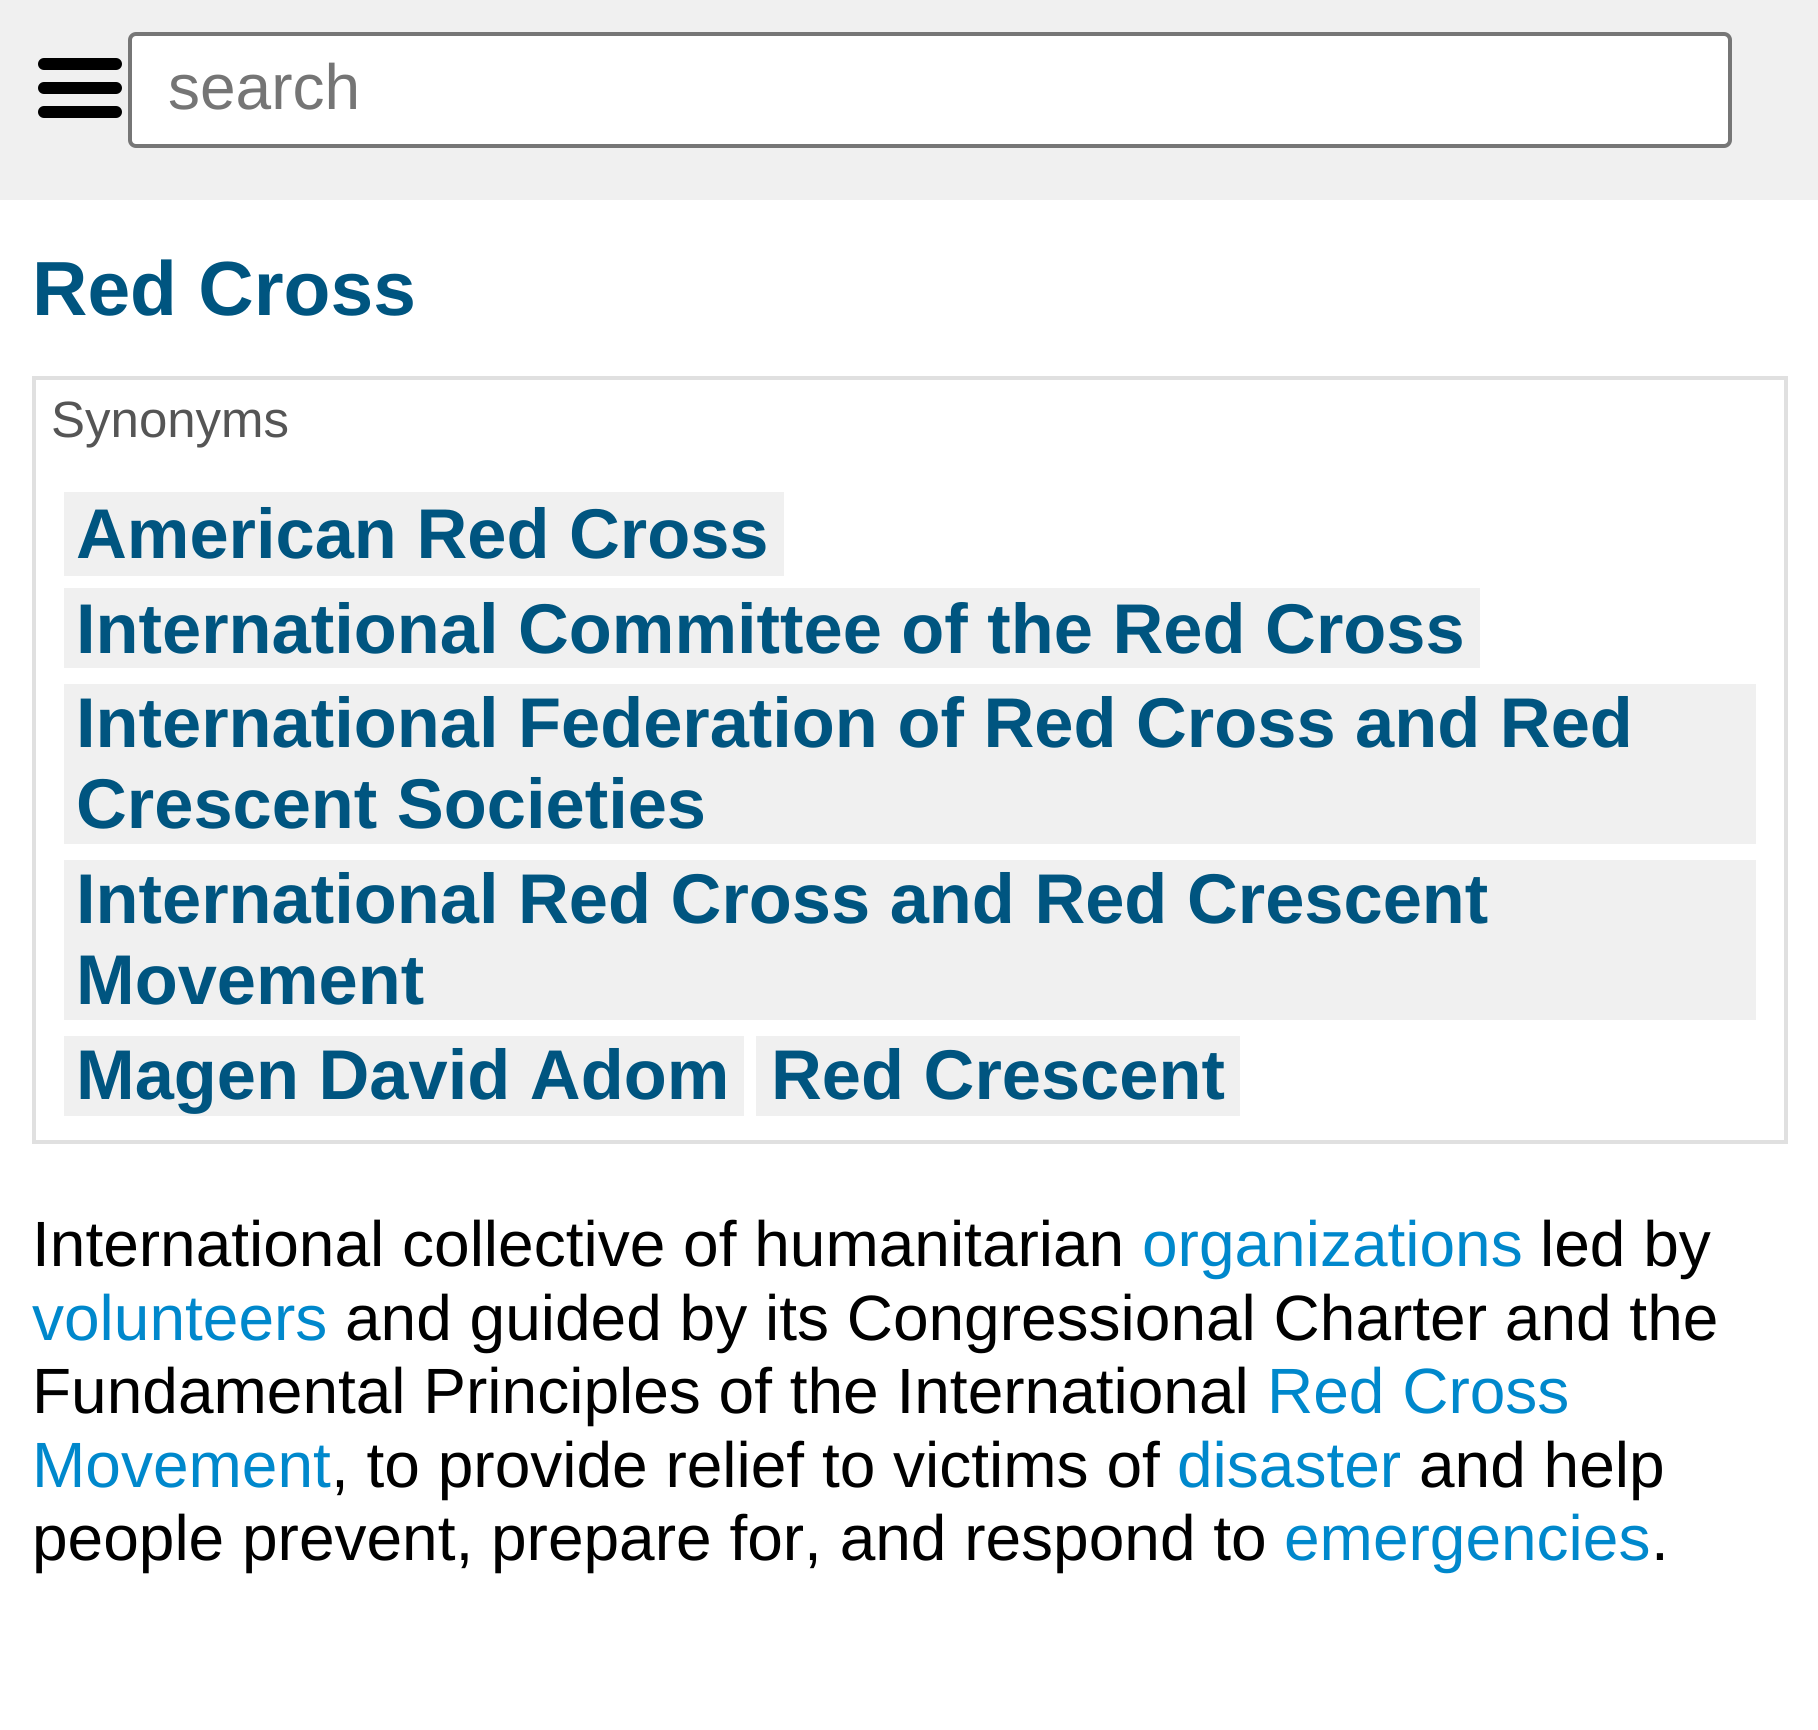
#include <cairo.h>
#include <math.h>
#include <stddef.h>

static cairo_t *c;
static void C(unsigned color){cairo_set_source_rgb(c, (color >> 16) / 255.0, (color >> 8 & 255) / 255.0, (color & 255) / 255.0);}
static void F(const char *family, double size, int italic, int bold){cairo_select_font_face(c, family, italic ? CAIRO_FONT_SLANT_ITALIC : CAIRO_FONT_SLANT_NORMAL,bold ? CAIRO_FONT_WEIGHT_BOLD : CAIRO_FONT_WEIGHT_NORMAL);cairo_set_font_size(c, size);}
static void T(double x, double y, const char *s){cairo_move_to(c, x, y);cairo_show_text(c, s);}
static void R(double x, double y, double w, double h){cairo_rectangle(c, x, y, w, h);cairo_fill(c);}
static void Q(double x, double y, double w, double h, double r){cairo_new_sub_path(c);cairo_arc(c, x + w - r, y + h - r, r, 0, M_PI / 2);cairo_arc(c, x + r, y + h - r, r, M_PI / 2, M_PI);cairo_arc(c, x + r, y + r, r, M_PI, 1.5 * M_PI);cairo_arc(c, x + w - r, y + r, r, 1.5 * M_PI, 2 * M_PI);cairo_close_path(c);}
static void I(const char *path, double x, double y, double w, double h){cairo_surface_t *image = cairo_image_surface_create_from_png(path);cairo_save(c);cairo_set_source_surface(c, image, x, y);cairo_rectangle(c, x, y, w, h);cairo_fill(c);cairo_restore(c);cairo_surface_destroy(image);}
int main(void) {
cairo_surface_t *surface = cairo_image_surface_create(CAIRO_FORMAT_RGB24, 1818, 1730);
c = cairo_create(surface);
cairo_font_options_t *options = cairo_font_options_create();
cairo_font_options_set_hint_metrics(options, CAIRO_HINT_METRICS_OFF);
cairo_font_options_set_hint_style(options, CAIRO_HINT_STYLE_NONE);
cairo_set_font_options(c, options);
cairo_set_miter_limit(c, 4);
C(0xffffff);
cairo_paint(c);
C(0xf0f0f0);
R(0,0,1818,200);
I("1.png",38,58,84,60);
C(0xffffff);
Q(130,34,1600,112,6);
cairo_fill_preserve(c);
C(0x767676);
cairo_set_line_width(c,4);
cairo_stroke(c);
F("Liberation Sans",64,0,0);
C(0x757575);
T(168,109,"search");
F("Liberation Sans",76.75,0,1);
C(0x005580);
T(32,315,"Red Cross");
cairo_rectangle(c,34,378,1752,764);
C(0xe0e0e0);
cairo_stroke(c);
F("Liberation Sans",51,0,0);
C(0x555555);
T(51,437,"Synonyms");
C(0xf0f0f0);
R(64,492,720,84);
F("Liberation Sans",70.4,0,1);
C(0x005580);
T(76,558,"American Red Cross");
C(0xf0f0f0);
R(64,588,1416,80);
C(0x005580);
T(76,653,"International Committee of the Red Cross");
C(0xf0f0f0);
R(64,684,1692,160);
C(0x005580);
T(76,747,"International Federation of Red Cross and Red");
T(76,828,"Crescent Societies");
C(0xf0f0f0);
R(64,860,1692,160);
C(0x005580);
T(76,923,"International Red Cross and Red Crescent");
T(76,1004,"Movement");
C(0xf0f0f0);
R(64,1036,680,80);
C(0x005580);
T(76,1099,"Magen David Adom");
C(0xf0f0f0);
R(756,1036,484,80);
C(0x005580);
T(771,1099,"Red Crescent");
F("Liberation Sans",64,0,0);
C(0x000000);
T(32,1266,"International collective of humanitarian");
C(0x0088cc);
T(1142,1266,"organizations");
C(0x000000);
T(1540,1266,"led by");
C(0x0088cc);
T(32,1340,"volunteers");
C(0x000000);
T(345,1340,"and guided by its Congressional Charter and the");
T(32,1413,"Fundamental Principles of the International");
C(0x0088cc);
T(1267,1413,"Red Cross");
T(32,1487,"Movement");
C(0x000000);
T(331,1487,", to provide relief to victims of");
C(0x0088cc);
T(1177,1487,"disaster");
C(0x000000);
T(1419,1487,"and help");
T(32,1560,"people prevent, prepare for, and respond to");
C(0x0088cc);
T(1284,1560,"emergencies");
C(0x000000);
T(1651,1560,".");
cairo_surface_write_to_png(surface, "o.png");
cairo_font_options_destroy(options);
cairo_destroy(c);
cairo_surface_destroy(surface);
return 0;
}
